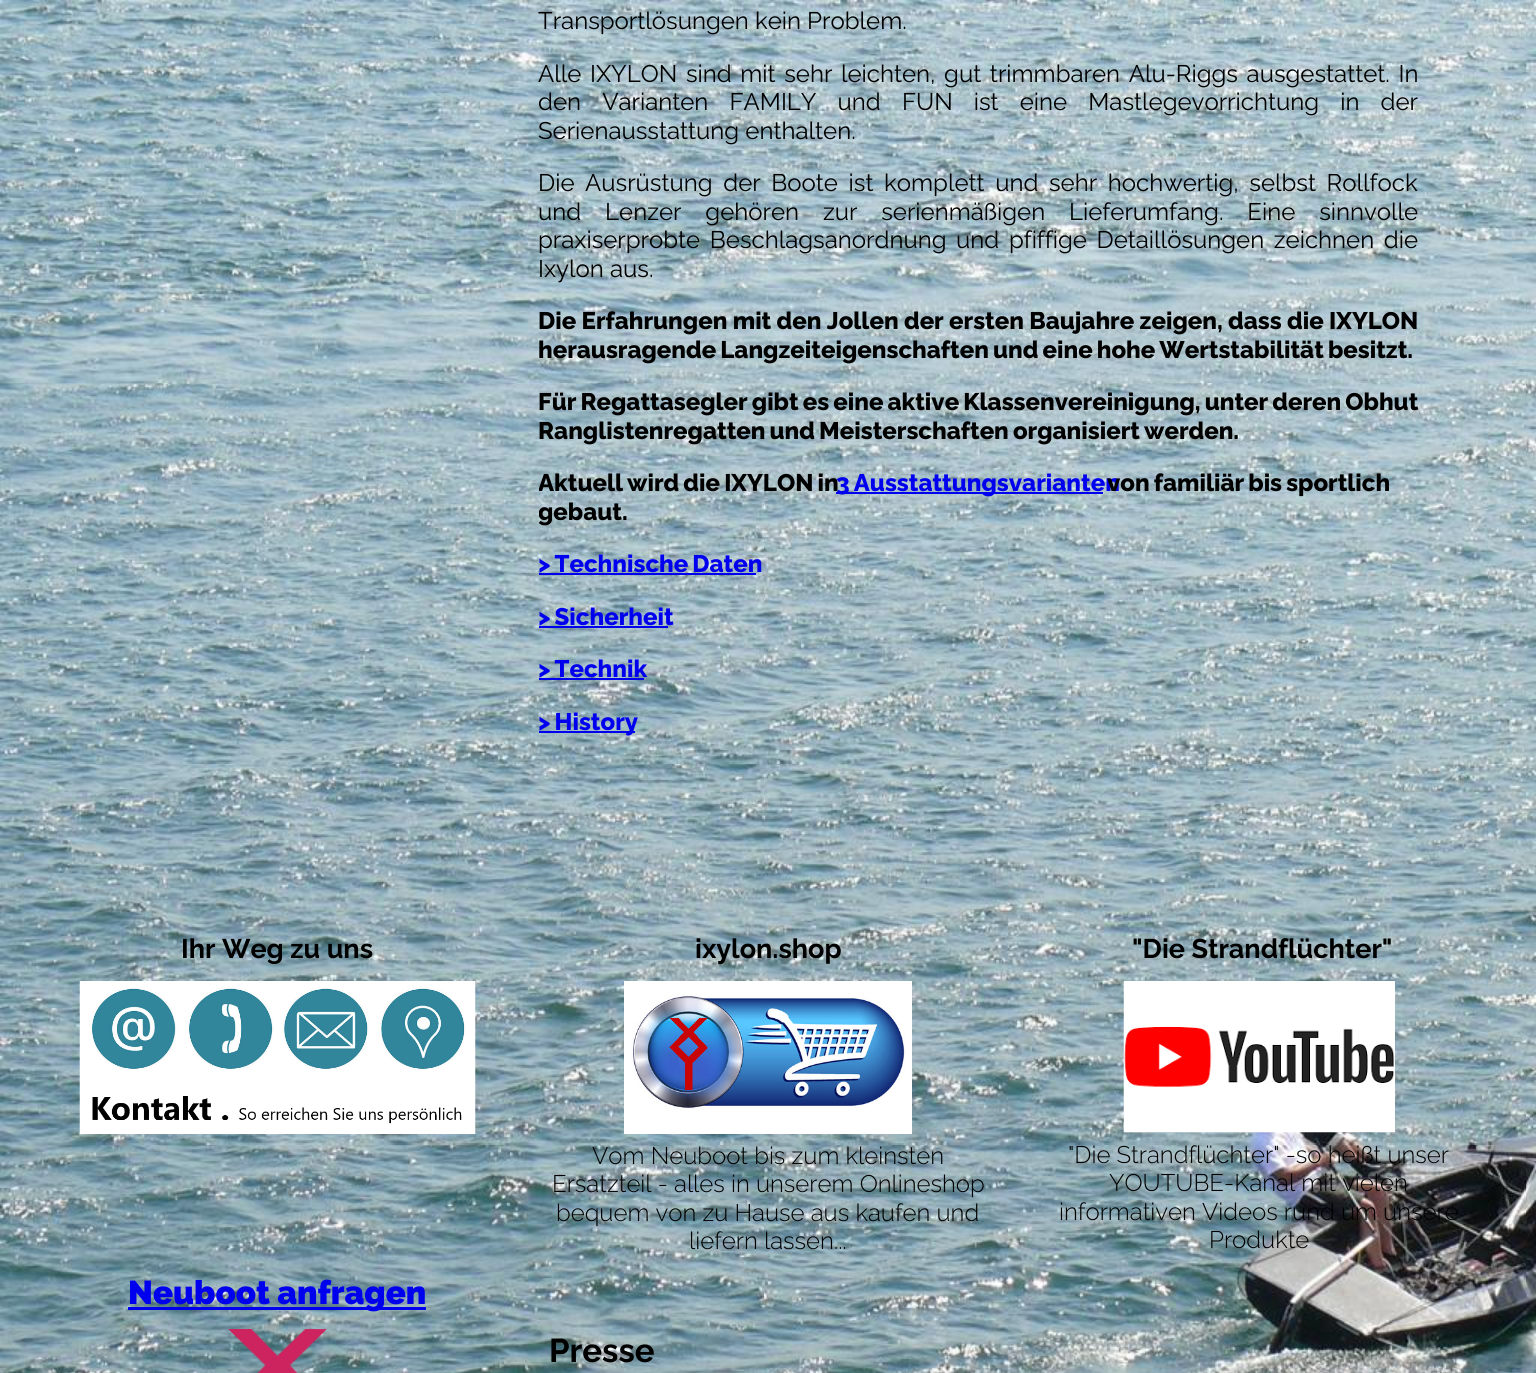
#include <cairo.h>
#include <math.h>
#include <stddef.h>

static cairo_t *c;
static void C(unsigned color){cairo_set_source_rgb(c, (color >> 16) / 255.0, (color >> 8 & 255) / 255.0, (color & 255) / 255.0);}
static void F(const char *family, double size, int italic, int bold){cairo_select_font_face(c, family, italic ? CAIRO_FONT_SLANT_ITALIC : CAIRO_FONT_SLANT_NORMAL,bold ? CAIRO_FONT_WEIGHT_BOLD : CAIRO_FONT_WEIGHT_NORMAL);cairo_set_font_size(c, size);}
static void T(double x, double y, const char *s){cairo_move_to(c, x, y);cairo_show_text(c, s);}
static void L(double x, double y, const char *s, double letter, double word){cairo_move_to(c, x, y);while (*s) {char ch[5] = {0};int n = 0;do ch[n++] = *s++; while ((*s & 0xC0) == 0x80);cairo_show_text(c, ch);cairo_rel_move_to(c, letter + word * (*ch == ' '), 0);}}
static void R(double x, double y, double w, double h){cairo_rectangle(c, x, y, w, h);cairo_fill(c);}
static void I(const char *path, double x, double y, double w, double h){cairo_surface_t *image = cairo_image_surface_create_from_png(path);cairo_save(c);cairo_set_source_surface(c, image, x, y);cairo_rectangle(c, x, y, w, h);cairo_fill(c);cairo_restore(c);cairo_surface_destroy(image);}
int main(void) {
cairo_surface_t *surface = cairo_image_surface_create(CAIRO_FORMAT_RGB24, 1536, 1373);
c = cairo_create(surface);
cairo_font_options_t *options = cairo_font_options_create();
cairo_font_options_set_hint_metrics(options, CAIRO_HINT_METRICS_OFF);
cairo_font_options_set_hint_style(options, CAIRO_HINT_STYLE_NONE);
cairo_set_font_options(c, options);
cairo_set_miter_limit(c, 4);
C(0xffffff);
cairo_paint(c);
I("1.png",0,0,1536,1373);
F("Raleway",24,0,0);
C(0x000000);
T(538,29,"Transportlösungen kein Problem.");
L(538,82,"Alle IXYLON sind mit sehr leichten, gut trimmbaren Alu-Riggs ausgestattet. In",0,2.5);
cairo_save(c);
cairo_rectangle(c,539,0,880,759);
cairo_clip(c);
L(538,110,"den Varianten FAMILY und FUN ist eine Mastlegevorrichtung in der",0,15);
cairo_restore(c);
T(538,139,"Serienausstattung enthalten.");
L(538,191,"Die Ausrüstung der Boote ist komplett und sehr hochwertig, selbst Rollfock",0,4.5);
L(538,220,"und Lenzer gehören zur serienmäßigen Lieferumfang. Eine sinnvolle",0,17.75);
L(538,248,"praxiserprobte Beschlagsanordnung und pfiffige Detaillösungen zeichnen die",0,3.5);
T(538,277,"Ixylon aus.");
F("Raleway ExtraBold",24,0,0);
L(538,329,"Die Erfahrungen mit den Jollen der ersten Baujahre zeigen, dass die IXYLON",0,-.25);
L(538,358,"herausragende Langzeiteigenschaften und eine hohe Wertstabilität besitzt.",0,-1.5);
L(538,410,"Für Regattasegler gibt es eine aktive Klassenvereinigung, unter deren Obhut",0,-1.5);
L(538,439,"Ranglistenregatten und Meisterschaften organisiert werden.",0,-1.5);
cairo_save(c);
cairo_rectangle(c,539,0,880,759);
cairo_clip(c);
L(538,491,"Aktuell wird die IXYLON in",0,-1.5);
cairo_restore(c);
C(0x0000ee);
R(836,492,267,2);
L(836,491,"3 Ausstattungsvarianten",0,-1.5);
C(0x000000);
L(1107,491,"von familiär bis sportlich",0,-1.5);
cairo_save(c);
cairo_rectangle(c,539,0,880,759);
cairo_clip(c);
T(538,520,"gebaut.");
cairo_restore(c);
C(0x0000ee);
L(538,572,"> Technische Daten",0,-1.5);
R(539,573,217,2);
L(538,625,"> Sicherheit",0,-1.5);
R(539,626,129,2);
L(538,677,"> Technik",0,-1.5);
R(539,678,105,2);
R(539,731,96,2);
L(538,730,"> History",0,-1.5);
F("Raleway",27,0,1);
C(0x000000);
T(181,958,"Ihr Weg zu uns");
I("2.png",79,981,397,153);
C(0x0000ee);
R(128,1307,298,3);
F("Raleway Black",33,0,0);
T(128,1304,"Neuboot anfragen");
I("3.png",228,1329,99,44);
F("Raleway",27,0,1);
C(0x000000);
T(695,958,"ixylon.shop");
I("4.png",624,981,288,153);
F("Raleway Light",24,0,0);
T(592,1164,"Vom Neuboot bis zum kleinsten");
T(552,1192,"Ersatzteil - alles in unserem Onlineshop");
T(556,1221,"bequem von zu Hause aus kaufen und");
T(689,1249,"liefern lassen...");
F("Raleway",33,0,1);
T(549,1362,"Presse");
F("Raleway",27,0,1);
T(1132,958,"\"Die Strandflüchter\"");
I("5.png",1123,981,272,152);
F("Raleway Light",24,0,0);
T(1068,1163,"\"Die Strandflüchter\" -so heißt unser");
T(1109,1191,"YOUTUBE-Kanal mit vielen");
T(1059,1220,"informativen Videos rund um unsere");
T(1209,1248,"Produkte");
cairo_surface_write_to_png(surface, "o.png");
cairo_font_options_destroy(options);
cairo_destroy(c);
cairo_surface_destroy(surface);
return 0;
}
